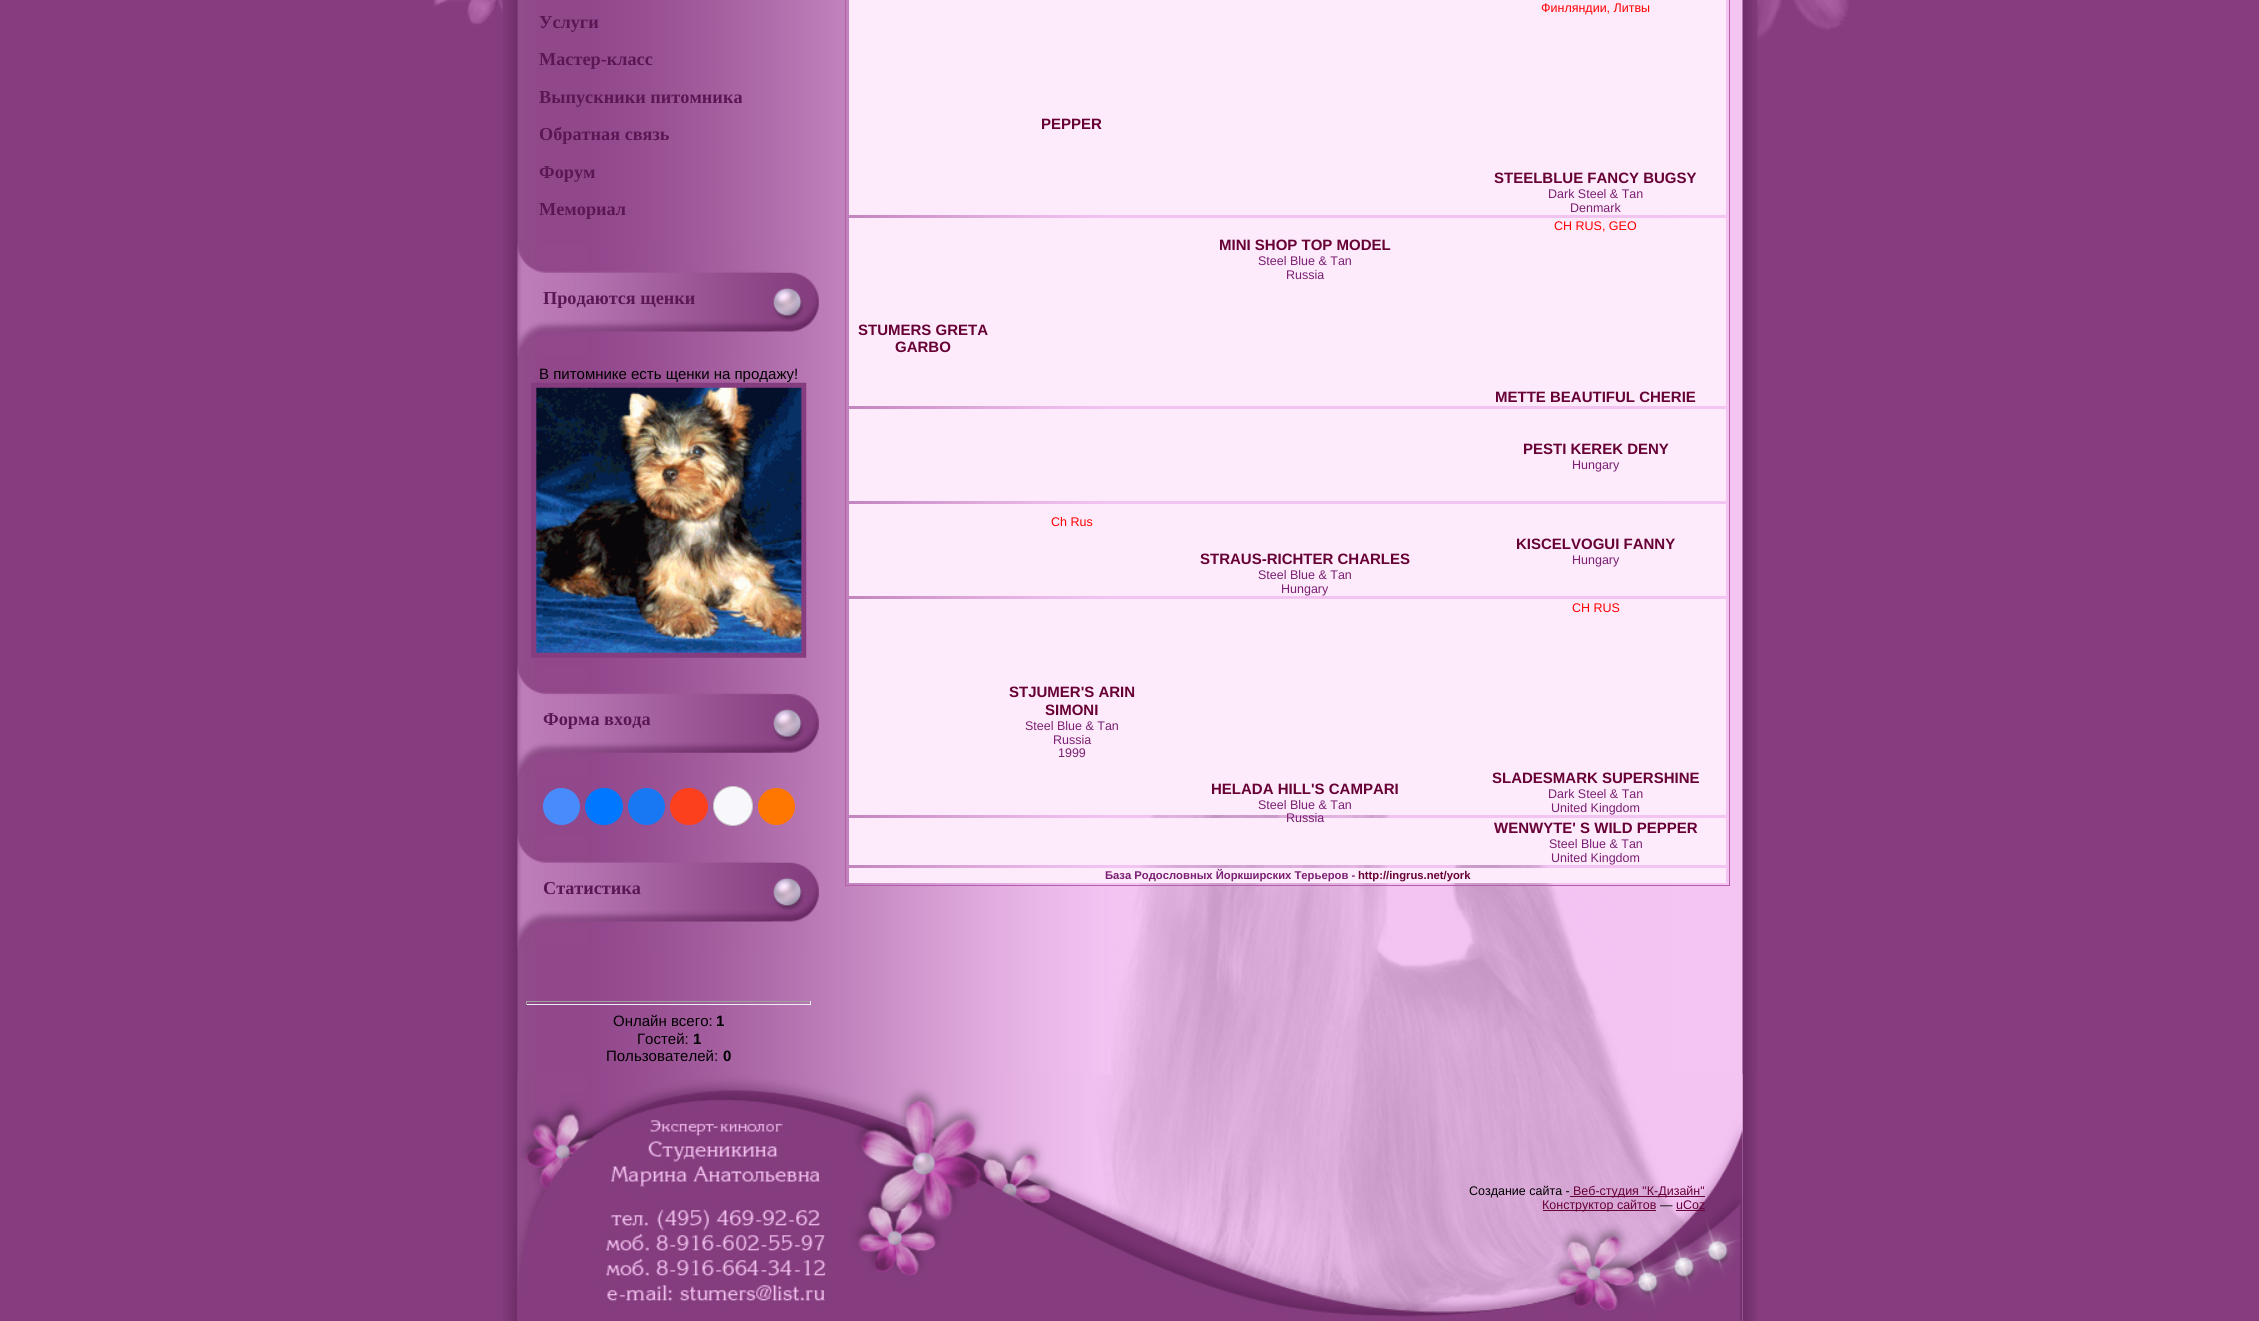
#include <cairo.h>
#include <math.h>
#include <stddef.h>

static cairo_t *c;
static void C(unsigned color){cairo_set_source_rgb(c, (color >> 16) / 255.0, (color >> 8 & 255) / 255.0, (color & 255) / 255.0);}
static void F(const char *family, double size, int italic, int bold){cairo_select_font_face(c, family, italic ? CAIRO_FONT_SLANT_ITALIC : CAIRO_FONT_SLANT_NORMAL,bold ? CAIRO_FONT_WEIGHT_BOLD : CAIRO_FONT_WEIGHT_NORMAL);cairo_set_font_size(c, size);}
static void T(double x, double y, const char *s){cairo_move_to(c, x, y);cairo_show_text(c, s);}
static void R(double x, double y, double w, double h){cairo_rectangle(c, x, y, w, h);cairo_fill(c);}
static void Q(double x, double y, double w, double h, double r){cairo_new_sub_path(c);cairo_arc(c, x + w - r, y + h - r, r, 0, M_PI / 2);cairo_arc(c, x + r, y + h - r, r, M_PI / 2, M_PI);cairo_arc(c, x + r, y + r, r, M_PI, 1.5 * M_PI);cairo_arc(c, x + w - r, y + r, r, 1.5 * M_PI, 2 * M_PI);cairo_close_path(c);}
static void I(const char *path, double x, double y, double w, double h){cairo_surface_t *image = cairo_image_surface_create_from_png(path);cairo_save(c);cairo_set_source_surface(c, image, x, y);cairo_rectangle(c, x, y, w, h);cairo_fill(c);cairo_restore(c);cairo_surface_destroy(image);}
int main(void) {
cairo_surface_t *surface = cairo_image_surface_create(CAIRO_FORMAT_RGB24, 2259, 1321);
c = cairo_create(surface);
cairo_font_options_t *options = cairo_font_options_create();
cairo_font_options_set_hint_metrics(options, CAIRO_HINT_METRICS_OFF);
cairo_font_options_set_hint_style(options, CAIRO_HINT_STYLE_NONE);
cairo_set_font_options(c, options);
cairo_set_miter_limit(c, 4);
C(0x853d7f);
cairo_paint(c);
I("1.png",433,0,1416,40);
I("2.png",502,0,1256,1074);
F("Liberation Serif",18.25,0,1);
C(0x5a1754);
T(539,28,"Услуги");
T(539,65,"Мастер-класс");
T(539,103,"Выпускники питомника");
T(539,140,"Обратная связь");
T(539,178,"Форум");
T(539,215,"Мемориал");
I("3.png",517,245,302,112);
T(543,304,"Продаются щенки");
F("Liberation Sans",15,0,0);
C(0x000000);
T(539,379,"В питомнике есть щенки на продажу!");
I("4.png",531,382,276,276);
I("5.png",517,666,303,112);
F("Liberation Serif",18.25,0,1);
C(0x5a1754);
T(543,725,"Форма входа");
C(0x498bfa);
cairo_new_path(c);
cairo_arc(c,561.5,806.5,18.5,0,2 * M_PI);
cairo_fill(c);
C(0x0077ff);
Q(585,788,38,37,18.5);
cairo_fill(c);
C(0x1877f2);
cairo_arc(c,646.5,806.5,18.5,0,2 * M_PI);
cairo_fill(c);
C(0xfc3f1d);
Q(670,788,38,37,18.5);
cairo_fill(c);
C(0xf8f8fc);
cairo_arc(c,733,806,19.5,0,2 * M_PI);
cairo_fill_preserve(c);
C(0xc4c4c4);
cairo_set_line_width(c,1);
cairo_stroke(c);
C(0xff7700);
cairo_arc(c,776.5,806.5,18.5,0,2 * M_PI);
cairo_fill(c);
I("6.png",517,835,302,112);
C(0x5a1754);
T(543,894,"Статистика");
C(0x9f9f9f);
R(526,1001,285,1);
C(0xeeeeee);
R(810,1001,1,4);
R(526,1004,285,1);
C(0x9f9f9f);
R(526,1001,1,4);
F("Liberation Sans",15,0,0);
C(0x000000);
T(613,1026,"Онлайн всего:");
F("Liberation Sans",15,0,1);
T(716,1026,"1");
F("Liberation Sans",15,0,0);
T(637,1044,"Гостей:");
F("Liberation Sans",15,0,1);
T(693,1044,"1");
F("Liberation Sans",15,0,0);
T(606,1061,"Пользователей:");
F("Liberation Sans",15,0,1);
T(723,1061,"0");
I("7.png",1111,815,507,259);
cairo_rectangle(c,845.5,-.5,884,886);
C(0xb65ea9);
cairo_stroke(c);
C(0xfdeafa);
R(849,0,877,215);
C(0x660035);
T(1041,129,"PEPPER");
C(0xfdeafa);
R(849,218,877,188);
C(0x660035);
T(858,335,"STUMERS GRETA");
T(895,352,"GARBO");
F("Liberation Sans",12.5,0,0);
C(0xff0000);
T(1541,12,"Финляндии, Литвы");
F("Liberation Sans",15,0,1);
C(0x660035);
T(1494,183,"STEELBLUE FANCY BUGSY");
F("Liberation Sans",12.5,0,0);
C(0x7a1f73);
T(1548,198,"Dark Steel & Tan");
T(1570,212,"Denmark");
F("Liberation Sans",15,0,1);
C(0x660035);
T(1219,250,"MINI SHOP TOP MODEL");
F("Liberation Sans",12.5,0,0);
C(0x7a1f73);
T(1258,265,"Steel Blue & Tan");
T(1286,279,"Russia");
C(0xff0000);
T(1554,230,"CH RUS, GEO");
F("Liberation Sans",15,0,1);
C(0x660035);
T(1495,402,"METTE BEAUTIFUL CHERIE");
C(0xfdeafa);
R(849,409,877,92);
C(0x660035);
T(1523,454,"PESTI KEREK DENY");
F("Liberation Sans",12.5,0,0);
C(0x7a1f73);
T(1572,469,"Hungary");
C(0xfdeafa);
R(849,504,877,92);
C(0xff0000);
T(1051,526,"Ch Rus");
C(0xfdeafa);
R(849,599,877,216);
F("Liberation Sans",15,0,1);
C(0x660035);
T(1009,697,"STJUMER'S ARIN");
T(1045,715,"SIMONI");
F("Liberation Sans",12.5,0,0);
C(0x7a1f73);
T(1025,730,"Steel Blue & Tan");
T(1053,744,"Russia");
T(1058,757,"1999");
F("Liberation Sans",15,0,1);
C(0x660035);
T(1200,564,"STRAUS-RICHTER CHARLES");
F("Liberation Sans",12.5,0,0);
C(0x7a1f73);
T(1258,579,"Steel Blue & Tan");
T(1281,593,"Hungary");
F("Liberation Sans",15,0,1);
C(0x660035);
T(1516,549,"KISCELVOGUI FANNY");
F("Liberation Sans",12.5,0,0);
C(0x7a1f73);
T(1572,564,"Hungary");
F("Liberation Sans",15,0,1);
C(0x660035);
T(1211,794,"HELADA HILL'S CAMPARI");
F("Liberation Sans",12.5,0,0);
C(0x7a1f73);
T(1258,809,"Steel Blue & Tan");
C(0xfdeafa);
R(849,818,877,47);
C(0x7a1f73);
T(1286,822,"Russia");
C(0xff0000);
T(1572,612,"CH RUS");
F("Liberation Sans",15,0,1);
C(0x660035);
T(1492,783,"SLADESMARK SUPERSHINE");
F("Liberation Sans",12.5,0,0);
C(0x7a1f73);
T(1548,798,"Dark Steel & Tan");
T(1551,812,"United Kingdom");
F("Liberation Sans",15,0,1);
C(0x660035);
T(1494,833,"WENWYTE' S WILD PEPPER");
F("Liberation Sans",12.5,0,0);
C(0x7a1f73);
T(1549,848,"Steel Blue & Tan");
T(1551,862,"United Kingdom");
C(0xfdeafa);
R(849,868,877,15);
F("Liberation Sans",11.25,0,1);
C(0x7a1f73);
T(1105,879,"База Родословных Йоркширских Терьеров -");
C(0x660035);
T(1358,879,"http://ingrus.net/york");
I("8.png",503,1074,1254,247);
I("9.png",517,1074,1226,247);
F("Liberation Sans",12.5,0,0);
C(0x000000);
T(1469,1195,"Создание сайта -");
C(0x660035);
R(1570,1196,135,1);
T(1573,1195,"Веб-студия \"К-Дизайн\"");
R(1543,1210,113,1);
T(1542,1209,"Конструктор сайтов");
C(0x000000);
T(1660,1209,"—");
C(0x660035);
T(1676,1209,"uCoz");
R(1676,1210,29,1);
cairo_surface_write_to_png(surface, "o.png");
cairo_font_options_destroy(options);
cairo_destroy(c);
cairo_surface_destroy(surface);
return 0;
}
